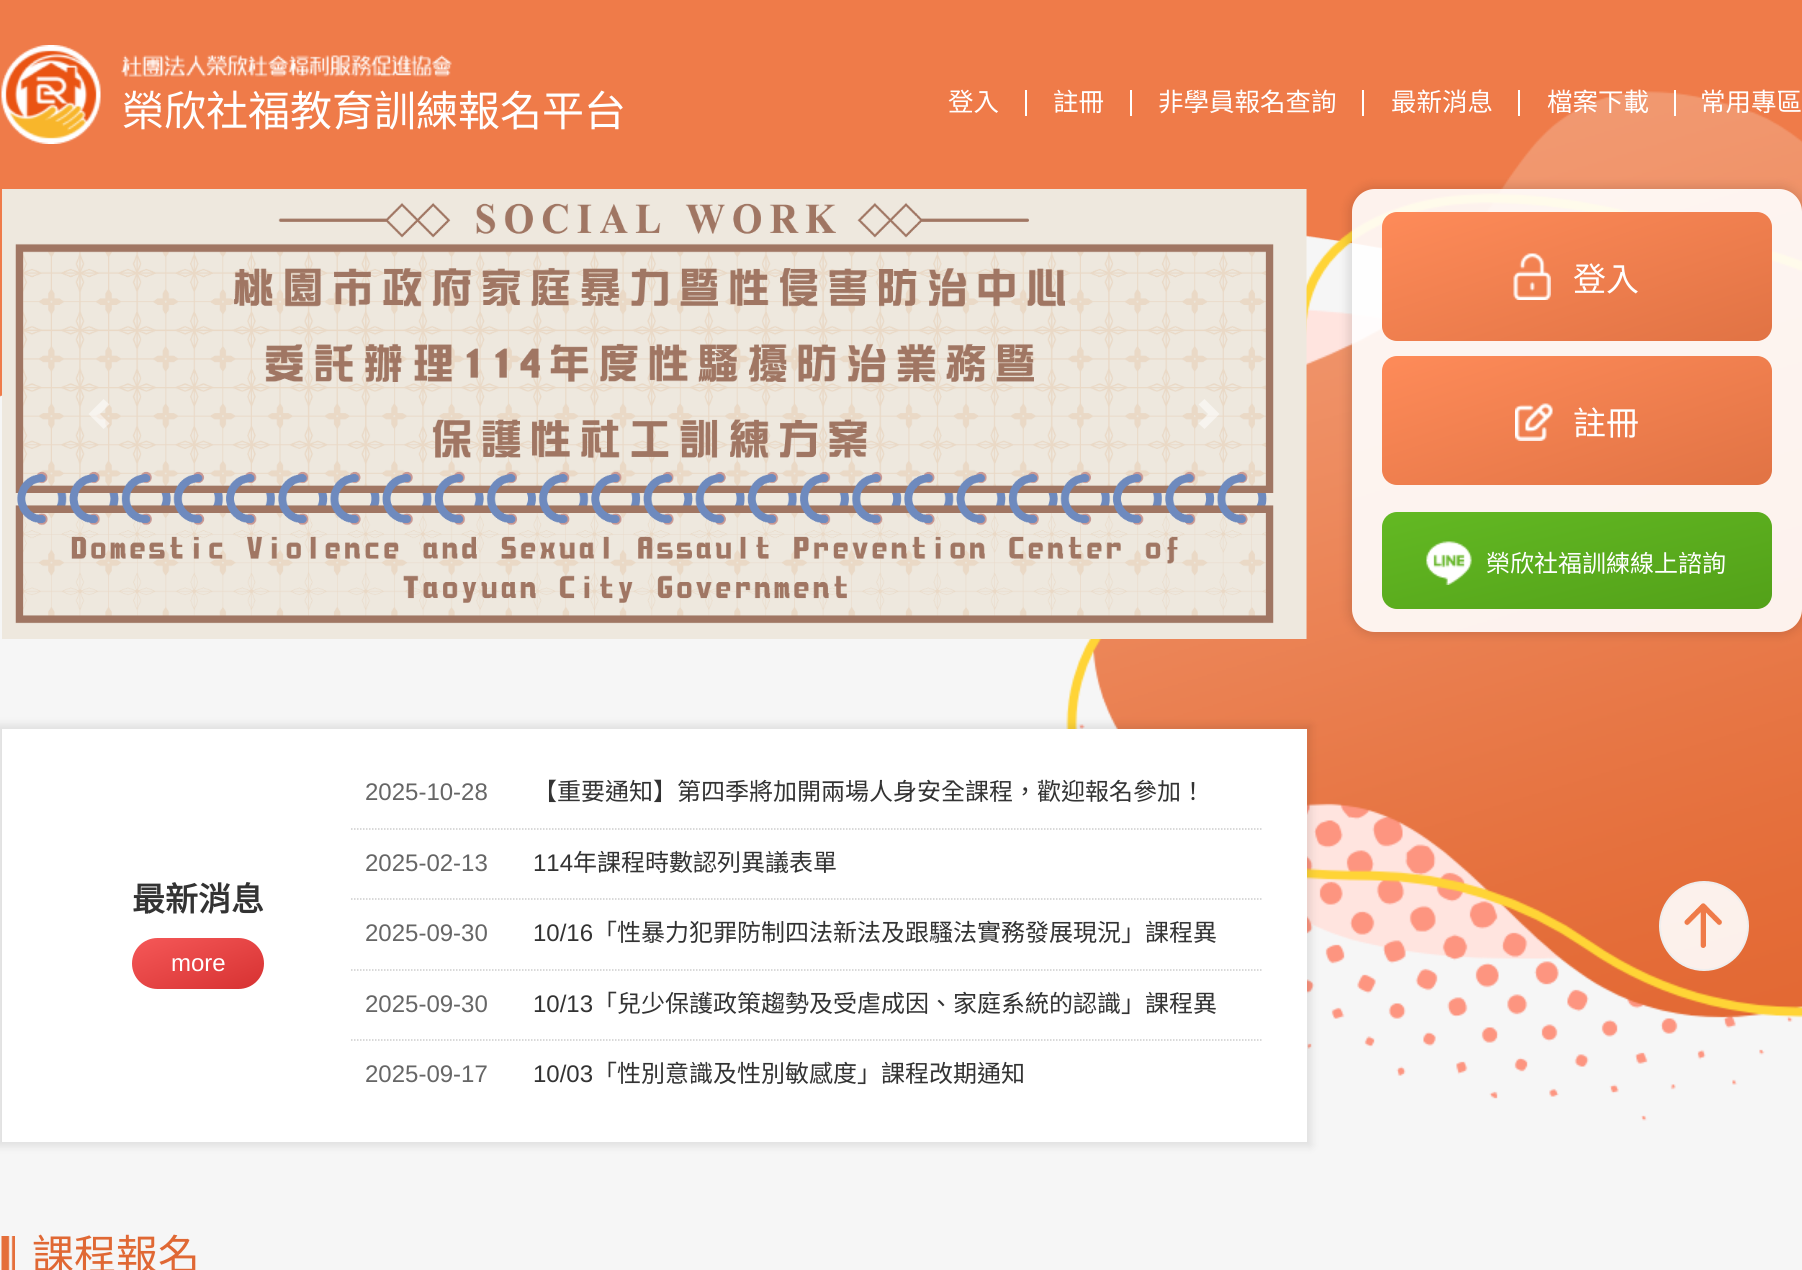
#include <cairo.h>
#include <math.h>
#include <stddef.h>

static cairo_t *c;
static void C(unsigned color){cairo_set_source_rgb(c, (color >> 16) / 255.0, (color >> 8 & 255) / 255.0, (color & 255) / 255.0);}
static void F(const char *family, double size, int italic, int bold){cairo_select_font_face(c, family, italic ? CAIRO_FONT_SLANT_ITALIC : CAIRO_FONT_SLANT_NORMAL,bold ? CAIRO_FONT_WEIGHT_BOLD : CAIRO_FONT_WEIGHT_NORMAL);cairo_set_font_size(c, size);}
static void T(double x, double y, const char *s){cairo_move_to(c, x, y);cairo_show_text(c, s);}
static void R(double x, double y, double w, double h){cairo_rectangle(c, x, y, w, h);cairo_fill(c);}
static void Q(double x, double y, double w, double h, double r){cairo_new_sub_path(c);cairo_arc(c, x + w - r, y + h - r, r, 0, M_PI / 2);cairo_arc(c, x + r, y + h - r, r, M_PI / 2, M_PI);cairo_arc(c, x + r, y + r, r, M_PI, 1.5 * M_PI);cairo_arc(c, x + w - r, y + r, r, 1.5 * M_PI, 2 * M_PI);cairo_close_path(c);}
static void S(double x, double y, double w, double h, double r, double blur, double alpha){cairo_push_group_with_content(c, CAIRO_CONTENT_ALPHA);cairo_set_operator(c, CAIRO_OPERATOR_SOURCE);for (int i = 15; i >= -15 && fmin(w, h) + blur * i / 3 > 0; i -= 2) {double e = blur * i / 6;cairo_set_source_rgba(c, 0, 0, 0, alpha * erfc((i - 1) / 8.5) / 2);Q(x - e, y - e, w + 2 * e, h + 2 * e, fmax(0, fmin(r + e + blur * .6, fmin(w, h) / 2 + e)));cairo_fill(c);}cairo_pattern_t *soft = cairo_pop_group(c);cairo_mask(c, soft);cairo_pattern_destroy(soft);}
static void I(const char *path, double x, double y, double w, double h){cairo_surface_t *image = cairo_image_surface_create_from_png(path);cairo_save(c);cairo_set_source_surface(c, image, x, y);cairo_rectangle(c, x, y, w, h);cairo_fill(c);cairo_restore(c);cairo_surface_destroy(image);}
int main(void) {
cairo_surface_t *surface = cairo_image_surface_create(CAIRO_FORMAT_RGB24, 1802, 1270);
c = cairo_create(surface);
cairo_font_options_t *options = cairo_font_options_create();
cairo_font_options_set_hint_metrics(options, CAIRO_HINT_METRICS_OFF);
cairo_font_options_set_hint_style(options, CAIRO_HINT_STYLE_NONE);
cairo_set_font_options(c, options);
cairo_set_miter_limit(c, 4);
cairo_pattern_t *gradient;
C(0xf6f6f6);
cairo_paint(c);
I("1.png",0,0,1802,397);
I("2.png",1066,91,736,1030);
I("3.png",1,45,100,99);
I("4.png",121,55,331,22);
F("Noto Sans CJK TC",42,0,0);
C(0xffffff);
T(122,126,"榮欣社福教育訓練報名平台");
F("Noto Sans CJK TC",25.5,0,0);
T(948,111,"登入");
R(1025,90,2,26);
T(1053,111,"註冊");
R(1130,90,2,26);
T(1158,111,"非學員報名查詢");
R(1362,90,2,26);
T(1391,111,"最新消息");
R(1518,90,2,26);
T(1547,111,"檔案下載");
R(1674,90,2,26);
T(1700,111,"常用專區");
cairo_save(c);
cairo_set_fill_rule(c,CAIRO_FILL_RULE_EVEN_ODD);
cairo_new_path(c);
cairo_move_to(c,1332,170);
cairo_line_to(c,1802,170);
cairo_line_to(c,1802,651);
cairo_line_to(c,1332,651);
cairo_close_path(c);
cairo_move_to(c,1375,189);
cairo_line_to(c,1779,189);
cairo_curve_to(c,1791.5,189,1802,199.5,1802,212);
cairo_line_to(c,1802,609);
cairo_curve_to(c,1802,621.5,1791.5,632,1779,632);
cairo_line_to(c,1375,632);
cairo_curve_to(c,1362.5,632,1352,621.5,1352,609);
cairo_line_to(c,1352,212);
cairo_curve_to(c,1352,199.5,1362.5,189,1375,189);
cairo_close_path(c);
cairo_clip(c);
C(0x000000);
S(1347,185,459,451,27,4.5,.1);
cairo_restore(c);
cairo_set_source_rgba(c,1,1,1,0.9);
Q(1352,189,450,443,23);
cairo_fill(c);
gradient = cairo_pattern_create_linear(1615,392,1538,160);
cairo_pattern_add_color_stop_rgba(gradient,0,0.882,0.451,0.267,1);
cairo_pattern_add_color_stop_rgba(gradient,1,0.996,0.545,0.349,1);
cairo_set_source(c,gradient);
cairo_pattern_destroy(gradient);
Q(1382,212,390,129,15);
cairo_fill(c);
I("5.png",1513,253,38,47);
F("Noto Sans CJK TC",33,0,0);
C(0xffffff);
T(1573,291,"登入");
gradient = cairo_pattern_create_linear(1615,536,1538,304);
cairo_pattern_add_color_stop_rgba(gradient,0,0.882,0.451,0.267,1);
cairo_pattern_add_color_stop_rgba(gradient,1,0.996,0.545,0.349,1);
cairo_set_source(c,gradient);
cairo_pattern_destroy(gradient);
Q(1382,356,390,129,15);
cairo_fill(c);
I("6.png",1515,403,38,38);
C(0xffffff);
T(1573,435,"註冊");
gradient = cairo_pattern_create_linear(1599,652,1554,468);
cairo_pattern_add_color_stop_rgba(gradient,0,0.325,0.631,0.098,1);
cairo_pattern_add_color_stop_rgba(gradient,1,0.388,0.725,0.137,1);
cairo_set_source(c,gradient);
cairo_pattern_destroy(gradient);
Q(1382,512,390,97,15);
cairo_fill(c);
I("7.png",1426,541,46,44);
F("Noto Sans CJK TC",24,0,0);
C(0xffffff);
T(1486,572,"榮欣社福訓練線上諮詢");
I("8.png",2,189,1305,450);
cairo_set_source_rgba(c,1,1,1,0.5);
cairo_new_path(c);
cairo_move_to(c,103.5,399);
cairo_line_to(c,88.5,414);
cairo_line_to(c,103.5,429);
cairo_line_to(c,109.5,423.5);
cairo_line_to(c,100,414);
cairo_line_to(c,109.5,404.5);
cairo_close_path(c);
cairo_fill(c);
cairo_new_path(c);
cairo_move_to(c,1204.5,399);
cairo_line_to(c,1198.5,404.5);
cairo_line_to(c,1208,414);
cairo_line_to(c,1198.5,423.5);
cairo_line_to(c,1204.5,429);
cairo_line_to(c,1219.5,414);
cairo_close_path(c);
cairo_fill(c);
C(0x000000);
S(-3,725,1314,421,0,4.5,.1);
C(0xffffff);
R(2,729,1305,413);
F("Noto Sans CJK TC",33,0,1);
C(0x333333);
T(132,911,"最新消息");
gradient = cairo_pattern_create_linear(215,1007,181,919);
cairo_pattern_add_color_stop_rgba(gradient,0,0.843,0.196,0.196,1);
cairo_pattern_add_color_stop_rgba(gradient,1,0.961,0.345,0.345,1);
cairo_set_source(c,gradient);
cairo_pattern_destroy(gradient);
Q(132,938,132,51,25.5);
cairo_fill(c);
F("Liberation Sans",24,0,0);
C(0xffffff);
T(171,971,"more");
cairo_new_path(c);
cairo_move_to(c,351,829);
cairo_line_to(c,1261.5,829);
C(0xcccccc);
cairo_set_line_width(c,1.5);
cairo_set_dash(c,(double[]){1.5,1.5},2,0);
cairo_stroke(c);
C(0x666666);
T(365,800,"2025-10-28");
F("Noto Sans CJK TC",24,0,0);
C(0x333333);
T(533,800,"【重要通知】第四季將加開兩場人身安全課程，歡迎報名參加！");
cairo_new_path(c);
cairo_move_to(c,351,899);
cairo_line_to(c,1261.5,899);
C(0xcccccc);
cairo_stroke(c);
F("Liberation Sans",24,0,0);
C(0x666666);
T(365,871,"2025-02-13");
C(0x333333);
T(533,871,"114");
F("Noto Sans CJK TC",24,0,0);
T(573,871,"年課程時數認列異議表單");
cairo_new_path(c);
cairo_move_to(c,351,970);
cairo_line_to(c,1261.5,970);
C(0xcccccc);
cairo_stroke(c);
F("Liberation Sans",24,0,0);
C(0x666666);
T(365,941,"2025-09-30");
C(0x333333);
T(533,941,"10/16");
F("Noto Sans CJK TC",24,0,0);
T(593,941,"「性暴力犯罪防制四法新法及跟騷法實務發展現況」課程異");
cairo_new_path(c);
cairo_move_to(c,351,1040);
cairo_line_to(c,1261.5,1040);
C(0xcccccc);
cairo_stroke(c);
F("Liberation Sans",24,0,0);
C(0x666666);
T(365,1012,"2025-09-30");
C(0x333333);
T(533,1012,"10/13");
F("Noto Sans CJK TC",24,0,0);
T(593,1012,"「兒少保護政策趨勢及受虐成因、家庭系統的認識」課程異");
F("Liberation Sans",24,0,0);
C(0x666666);
T(365,1082,"2025-09-17");
C(0x333333);
T(533,1082,"10/03");
F("Noto Sans CJK TC",24,0,0);
T(593,1082,"「性別意識及性別敏感度」課程改期通知");
I("9.png",1,1236,14,34);
F("Noto Sans CJK TC",42,0,0);
C(0xe06834);
T(32,1270,"課程報名");
cairo_set_source_rgba(c,1,1,1,0.9);
cairo_new_path(c);
cairo_arc(c,1704,926,44,0,2 * M_PI);
cairo_fill_preserve(c);
C(0xeeeeee);
cairo_set_line_width(c,2);
cairo_set_dash(c,NULL,0,0);
cairo_stroke(c);
I("10.png",1684,903,38,45);
cairo_surface_write_to_png(surface, "o.png");
cairo_font_options_destroy(options);
cairo_destroy(c);
cairo_surface_destroy(surface);
return 0;
}
